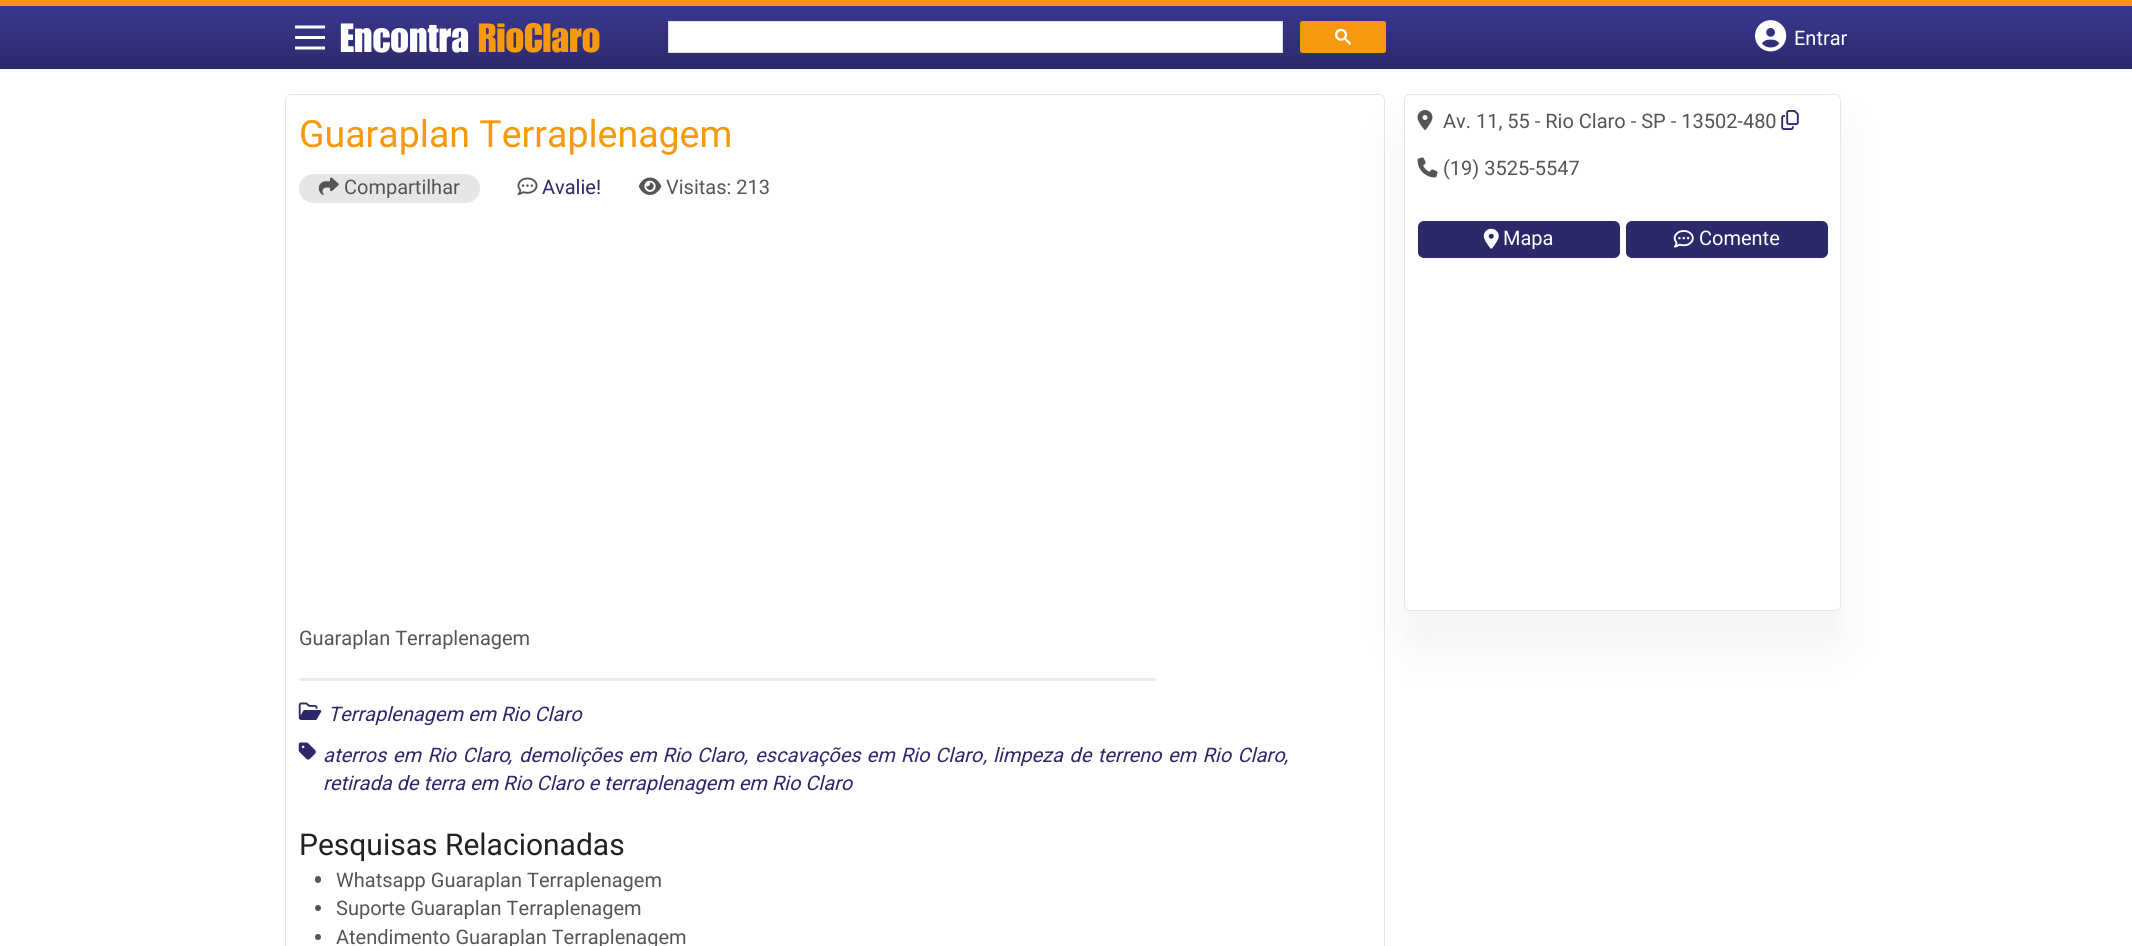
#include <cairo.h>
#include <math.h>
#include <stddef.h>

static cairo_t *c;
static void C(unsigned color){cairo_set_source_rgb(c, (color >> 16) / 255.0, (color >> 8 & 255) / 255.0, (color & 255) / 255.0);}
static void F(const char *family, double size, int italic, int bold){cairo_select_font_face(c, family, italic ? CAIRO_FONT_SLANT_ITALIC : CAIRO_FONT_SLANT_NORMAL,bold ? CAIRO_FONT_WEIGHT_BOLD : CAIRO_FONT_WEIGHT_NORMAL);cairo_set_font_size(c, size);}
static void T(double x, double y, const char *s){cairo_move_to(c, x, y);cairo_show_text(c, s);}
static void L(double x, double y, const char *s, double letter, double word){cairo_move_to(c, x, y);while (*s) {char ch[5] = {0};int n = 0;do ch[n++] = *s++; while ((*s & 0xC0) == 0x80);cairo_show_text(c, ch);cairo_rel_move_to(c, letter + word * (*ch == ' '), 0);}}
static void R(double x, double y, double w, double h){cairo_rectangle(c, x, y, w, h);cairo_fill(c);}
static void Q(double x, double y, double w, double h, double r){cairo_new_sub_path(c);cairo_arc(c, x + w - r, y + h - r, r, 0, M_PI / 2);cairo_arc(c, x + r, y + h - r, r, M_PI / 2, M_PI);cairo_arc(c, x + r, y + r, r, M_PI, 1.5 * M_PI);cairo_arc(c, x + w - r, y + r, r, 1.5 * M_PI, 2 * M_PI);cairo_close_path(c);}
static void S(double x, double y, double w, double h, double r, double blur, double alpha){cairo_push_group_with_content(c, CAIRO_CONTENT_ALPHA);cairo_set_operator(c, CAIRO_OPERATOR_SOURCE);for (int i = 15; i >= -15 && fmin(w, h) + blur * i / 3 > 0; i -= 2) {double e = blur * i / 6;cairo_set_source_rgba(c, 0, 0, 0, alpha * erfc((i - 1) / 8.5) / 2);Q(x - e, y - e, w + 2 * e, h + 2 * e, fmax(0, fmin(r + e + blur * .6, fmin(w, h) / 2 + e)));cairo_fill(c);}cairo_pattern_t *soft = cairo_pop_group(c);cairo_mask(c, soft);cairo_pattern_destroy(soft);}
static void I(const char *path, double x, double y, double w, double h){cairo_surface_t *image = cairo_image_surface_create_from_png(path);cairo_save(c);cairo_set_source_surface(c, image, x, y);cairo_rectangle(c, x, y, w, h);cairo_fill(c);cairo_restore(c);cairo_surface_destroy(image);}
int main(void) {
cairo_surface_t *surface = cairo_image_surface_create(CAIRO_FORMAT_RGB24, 2132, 946);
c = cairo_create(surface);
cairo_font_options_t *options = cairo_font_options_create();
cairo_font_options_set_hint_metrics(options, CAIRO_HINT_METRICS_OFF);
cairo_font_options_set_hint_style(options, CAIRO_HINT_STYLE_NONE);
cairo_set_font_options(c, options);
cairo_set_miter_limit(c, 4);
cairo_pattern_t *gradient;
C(0xffffff);
cairo_paint(c);
Q(285.5,94.5,1099,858,5.5);
C(0xe5e5e5);
cairo_set_line_width(c,1);
cairo_stroke(c);
cairo_save(c);
cairo_set_fill_rule(c,CAIRO_FILL_RULE_EVEN_ODD);
cairo_new_path(c);
cairo_move_to(c,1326,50);
cairo_line_to(c,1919,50);
cairo_line_to(c,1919,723);
cairo_line_to(c,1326,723);
cairo_close_path(c);
cairo_move_to(c,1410,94);
cairo_line_to(c,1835,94);
cairo_curve_to(c,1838.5,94,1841,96.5,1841,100);
cairo_line_to(c,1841,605);
cairo_curve_to(c,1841,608.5,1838.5,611,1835,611);
cairo_line_to(c,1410,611);
cairo_curve_to(c,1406.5,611,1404,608.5,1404,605);
cairo_line_to(c,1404,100);
cairo_curve_to(c,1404,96.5,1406.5,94,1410,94);
cairo_close_path(c);
cairo_clip(c);
C(0x000000);
S(1404,128,437,517,6,25.5,.05);
cairo_restore(c);
gradient = cairo_pattern_create_linear(1066,6.2,1066,69);
cairo_pattern_add_color_stop_rgba(gradient,0,0.227,0.216,0.561,1);
cairo_pattern_add_color_stop_rgba(gradient,1,0.169,0.161,0.416,1);
cairo_set_source(c,gradient);
cairo_pattern_destroy(gradient);
R(0,6,2132,63);
C(0xf6990d);
R(0,0,2132,6);
cairo_new_path(c);
cairo_move_to(c,295,27);
cairo_line_to(c,325,27);
C(0xfefefe);
cairo_set_line_width(c,3);
cairo_stroke(c);
R(295,36,30,3);
cairo_new_path(c);
cairo_move_to(c,295,48);
cairo_line_to(c,325,48);
cairo_stroke(c);
F("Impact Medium",40,0,0);
C(0xffffff);
T(340,52,"Encontra");
C(0xf6990d);
T(478,52,"RioClaro");
C(0xffffff);
cairo_rectangle(c,668.5,21.5,614,31);
cairo_fill_preserve(c);
C(0xdfe1e5);
cairo_set_line_width(c,1);
cairo_stroke(c);
C(0xf6990d);
Q(1300.5,21.5,85,31,2);
cairo_fill_preserve(c);
cairo_stroke(c);
I("1.png",1335,29,16,16);
I("2.png",1755,20,32,32);
F("Roboto",20,0,0);
C(0xffffff);
T(1794,45,"Entrar");
F("Roboto",37.5,0,0);
C(0xf6990d);
T(299,147,"Guaraplan Terraplenagem");
C(0xe6e6e6);
Q(299,174,181,29,14.5);
cairo_fill(c);
I("3.png",318,177,21,18);
F("Roboto",20,0,0);
C(0x555555);
T(344,194,"Compartilhar");
I("4.png",517,177,21,18);
C(0x2b296a);
T(542,194,"Avalie!");
I("5.png",638,177,24,18);
C(0x555555);
T(666,194,"Visitas: 213");
T(299,645,"Guaraplan Terraplenagem");
C(0xebebeb);
Q(299,678,857,3,1.5);
cairo_fill(c);
I("6.png",298,702,24,18);
F("Roboto",20,1,0);
C(0x2b296a);
T(328,721,"Terraplenagem em Rio Claro");
I("7.png",298,742,18,18);
L(323,762,"aterros em Rio Claro",0,1.5);
L(519,762,"demolições em Rio Claro",0,1);
L(755,762,"escavações em Rio Claro",0,1);
L(993,762,"limpeza de terreno em Rio Claro",0,1.5);
T(508,762,",");
T(744,762,",");
T(983,762,",");
T(1284,762,",");
T(323,790,"retirada de terra em Rio Claro e terraplenagem em Rio Claro");
F("Roboto",30,0,0);
C(0x222222);
T(299,855,"Pesquisas Relacionadas");
C(0x555555);
Q(315,876,6,7,3);
cairo_fill(c);
F("Roboto",20,0,0);
T(336,887,"Whatsapp Guaraplan Terraplenagem");
cairo_new_path(c);
cairo_arc(c,318,908,3,0,2 * M_PI);
cairo_fill(c);
T(336,915,"Suporte Guaraplan Terraplenagem");
cairo_new_path(c);
cairo_arc(c,318,937,3,0,2 * M_PI);
cairo_fill(c);
T(336,944,"Atendimento Guaraplan Terraplenagem");
Q(1404.5,94.5,436,516,5.5);
cairo_set_source_rgba(c,0,0,0,0.1);
cairo_stroke(c);
I("8.png",1417,110,16,20);
C(0x555555);
T(1443,128,"Av. 11, 55 - Rio Claro - SP - 13502-480");
I("9.png",1781,110,18,20);
I("10.png",1417,157,21,21);
T(1443,175,"(19) 3525-5547");
C(0x2b296a);
Q(1418,221,202,37,6);
cairo_fill(c);
I("11.png",1483,228,16,21);
C(0xffffff);
T(1503,245,"Mapa");
C(0x2b296a);
Q(1626,221,202,37,6);
cairo_fill(c);
I("12.png",1673,230,21,18);
C(0xffffff);
T(1699,245,"Comente");
cairo_surface_write_to_png(surface, "o.png");
cairo_font_options_destroy(options);
cairo_destroy(c);
cairo_surface_destroy(surface);
return 0;
}
